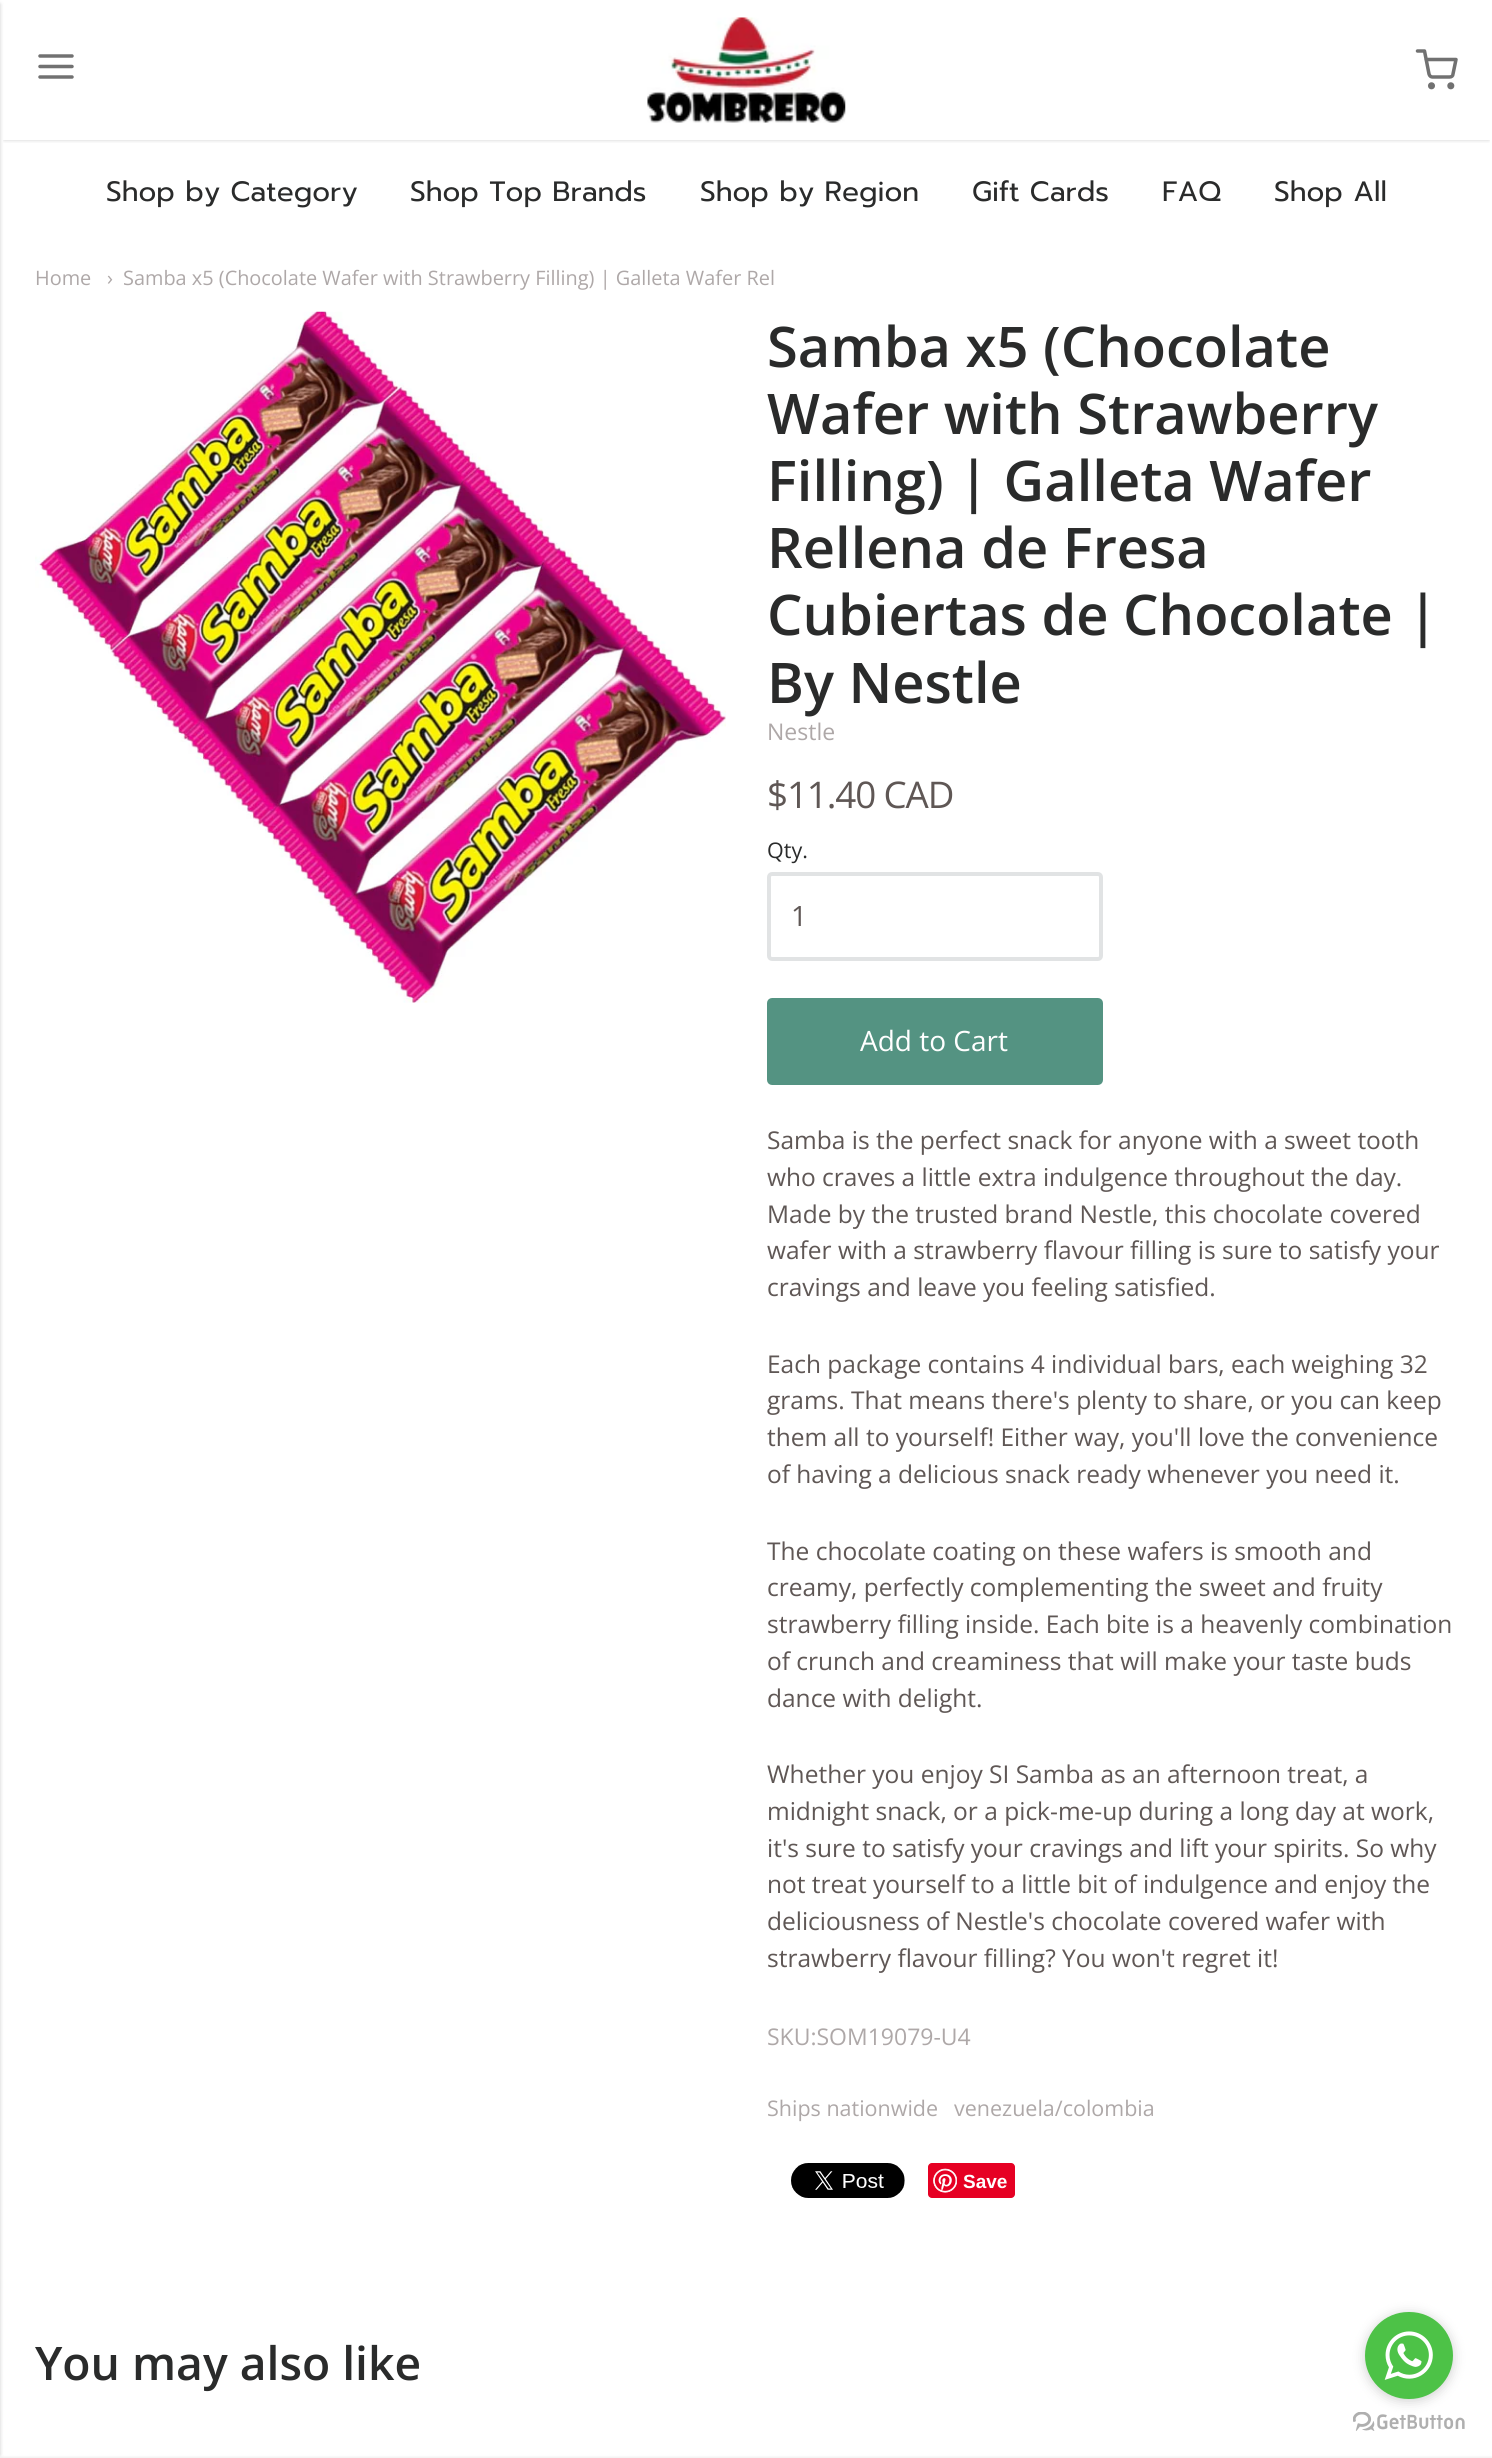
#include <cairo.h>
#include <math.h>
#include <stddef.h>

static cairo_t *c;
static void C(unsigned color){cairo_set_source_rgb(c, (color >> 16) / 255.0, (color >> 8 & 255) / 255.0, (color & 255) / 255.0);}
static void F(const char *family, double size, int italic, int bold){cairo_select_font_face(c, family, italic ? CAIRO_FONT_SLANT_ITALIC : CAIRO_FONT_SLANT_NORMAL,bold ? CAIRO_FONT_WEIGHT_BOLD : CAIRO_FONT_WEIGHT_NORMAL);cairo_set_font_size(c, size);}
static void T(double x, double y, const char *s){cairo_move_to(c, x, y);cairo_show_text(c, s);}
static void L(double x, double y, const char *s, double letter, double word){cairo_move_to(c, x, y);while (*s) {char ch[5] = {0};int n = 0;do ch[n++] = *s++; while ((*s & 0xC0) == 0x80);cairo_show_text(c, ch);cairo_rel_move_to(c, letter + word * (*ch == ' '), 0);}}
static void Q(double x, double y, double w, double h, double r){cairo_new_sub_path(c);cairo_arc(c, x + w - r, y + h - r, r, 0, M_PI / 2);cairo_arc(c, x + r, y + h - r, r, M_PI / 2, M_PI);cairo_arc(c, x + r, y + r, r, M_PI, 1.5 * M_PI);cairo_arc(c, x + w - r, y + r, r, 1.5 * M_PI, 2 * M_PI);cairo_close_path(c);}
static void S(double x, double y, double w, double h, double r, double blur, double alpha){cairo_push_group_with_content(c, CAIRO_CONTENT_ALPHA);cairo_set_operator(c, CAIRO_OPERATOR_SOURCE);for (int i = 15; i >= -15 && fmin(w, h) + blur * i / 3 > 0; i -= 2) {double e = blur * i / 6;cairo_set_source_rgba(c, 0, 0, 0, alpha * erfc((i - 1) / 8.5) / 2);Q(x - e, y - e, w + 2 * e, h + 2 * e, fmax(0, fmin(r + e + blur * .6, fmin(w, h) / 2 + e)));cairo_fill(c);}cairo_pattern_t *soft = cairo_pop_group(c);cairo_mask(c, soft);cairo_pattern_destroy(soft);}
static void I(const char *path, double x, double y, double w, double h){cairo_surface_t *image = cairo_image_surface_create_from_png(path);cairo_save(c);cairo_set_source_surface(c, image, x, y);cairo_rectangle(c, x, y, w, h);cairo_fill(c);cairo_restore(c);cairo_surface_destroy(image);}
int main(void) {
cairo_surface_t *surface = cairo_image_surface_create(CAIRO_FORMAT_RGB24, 1492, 2458);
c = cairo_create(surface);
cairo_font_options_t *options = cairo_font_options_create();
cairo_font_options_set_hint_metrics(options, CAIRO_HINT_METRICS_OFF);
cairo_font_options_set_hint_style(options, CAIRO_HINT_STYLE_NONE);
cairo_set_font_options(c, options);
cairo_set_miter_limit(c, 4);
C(0xffffff);
cairo_paint(c);
C(0x000000);
S(-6,4,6,2451,0,2,.2);
cairo_save(c);
cairo_rectangle(c,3,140,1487,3);
cairo_clip(c);
S(4,7,1485,133,0,2,.2);
cairo_restore(c);
cairo_new_path(c);
cairo_move_to(c,40,66.5);
cairo_line_to(c,72,66.5);
cairo_move_to(c,40,56);
cairo_line_to(c,72,56);
cairo_move_to(c,40,77);
cairo_line_to(c,72,77);
C(0x717171);
cairo_set_line_width(c,3.5);
cairo_set_line_cap(c,CAIRO_LINE_CAP_ROUND);
cairo_set_line_join(c,CAIRO_LINE_JOIN_ROUND);
cairo_stroke(c);
I("1.png",647,17,199,106);
cairo_new_path(c);
cairo_move_to(c,1417.5,51);
cairo_line_to(c,1424.5,51);
cairo_line_to(c,1429,74);
cairo_curve_to(c,1429.5,76,1431,77,1432.5,77);
cairo_line_to(c,1449.5,77);
cairo_curve_to(c,1451.5,77,1453,76,1453,74);
cairo_line_to(c,1456,59.5);
cairo_line_to(c,1426,59.5);
cairo_stroke(c);
cairo_arc(c,1431.5,85.8,1.8,0,2 * M_PI);
cairo_set_line_cap(c,CAIRO_LINE_CAP_BUTT);
cairo_set_line_join(c,CAIRO_LINE_JOIN_MITER);
cairo_stroke(c);
cairo_arc(c,1450.8,85.8,1.8,0,2 * M_PI);
cairo_stroke(c);
F("Prompt",28,0,0);
C(0x2a2b2b);
T(106,201,"Shop by Category");
T(410,201,"Shop Top Brands");
T(700,201,"Shop by Region");
T(972,201,"Gift Cards");
T(1162,201,"FAQ");
T(1274,201,"Shop All");
F("Open Sans",19.9,0,0);
C(0xaea8a8);
T(35,285,"Home");
T(107,285,"›");
T(123,285,"Samba x5 (Chocolate Wafer with Strawberry Filling) | Galleta Wafer Rel");
I("2.png",35,311,691,692);
F("Open Sans SemiBold",56,0,0);
C(0x2a2b2b);
T(767,367,"Samba x5 (Chocolate");
T(767,434,"Wafer with Strawberry");
T(767,501,"Filling) | Galleta Wafer");
T(767,568,"Rellena de Fresa");
T(767,635,"Cubiertas de Chocolate |");
T(767,703,"By Nestle");
F("Open Sans",23,0,0);
C(0xaea8a8);
T(767,740,"Nestle");
F("Open Sans",36.75,0,0);
C(0x5f5755);
L(767,808,"$11.40 CAD",-1.1,0);
F("Open Sans",21.5,0,0);
C(0x2a2b2b);
T(767,858,"Qty.");
Q(769,874,332,85,3);
C(0xe1e3e4);
cairo_set_line_width(c,4);
cairo_stroke(c);
F("Open Sans",28,0,0);
C(0x5f5755);
T(791,926,"1");
C(0x549382);
Q(769,1000,332,83,3);
cairo_fill_preserve(c);
cairo_stroke(c);
C(0xffffff);
T(860,1051,"Add to Cart");
F("Open Sans",24.5,0,0);
C(0x5f5755);
T(767,1149,"Samba is the perfect snack for anyone with a sweet tooth");
T(767,1186,"who craves a little extra indulgence throughout the day.");
T(767,1223,"Made by the trusted brand Nestle, this chocolate covered");
T(767,1259,"wafer with a strawberry flavour filling is sure to satisfy your");
T(767,1296,"cravings and leave you feeling satisfied.");
T(767,1373,"Each package contains 4 individual bars, each weighing 32");
T(767,1409,"grams. That means there's plenty to share, or you can keep");
T(767,1446,"them all to yourself! Either way, you'll love the convenience");
T(767,1483,"of having a delicious snack ready whenever you need it.");
T(767,1560,"The chocolate coating on these wafers is smooth and");
T(767,1596,"creamy, perfectly complementing the sweet and fruity");
T(767,1633,"strawberry filling inside. Each bite is a heavenly combination");
T(767,1670,"of crunch and creaminess that will make your taste buds");
T(767,1707,"dance with delight.");
T(767,1783,"Whether you enjoy SI Samba as an afternoon treat, a");
T(767,1820,"midnight snack, or a pick-me-up during a long day at work,");
T(767,1857,"it's sure to satisfy your cravings and lift your spirits. So why");
T(767,1893,"not treat yourself to a little bit of indulgence and enjoy the");
T(767,1930,"deliciousness of Nestle's chocolate covered wafer with");
T(767,1967,"strawberry flavour filling? You won't regret it!");
F("Open Sans",23,0,0);
C(0xaea8a8);
T(767,2045,"SKU:SOM19079-U4");
F("Open Sans",21.5,0,0);
T(767,2116,"Ships nationwide");
T(954,2116,"venezuela/colombia");
I("3.png",791,2163,114,35);
C(0xe60023);
Q(928,2163,87,35,4);
cairo_fill(c);
I("4.png",933,2168,24,25);
F("Liberation Sans",19,0,1);
C(0xffffff);
T(963,2188,"Save");
C(0x000000);
S(0,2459,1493,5,0,2,.2);
F("Open Sans SemiBold",46.25,0,0);
C(0x2a2b2b);
T(35,2380,"You may also like");
I("6.png",1353,2412,112,19);
C(0x888888);
S(1365,2314,88,87,43.5,6,.4);
C(0x4dc247);
Q(1365,2312,88,87,43.5);
cairo_fill(c);
I("5.png",1384,2331,49,49);
cairo_surface_write_to_png(surface, "o.png");
cairo_font_options_destroy(options);
cairo_destroy(c);
cairo_surface_destroy(surface);
return 0;
}
